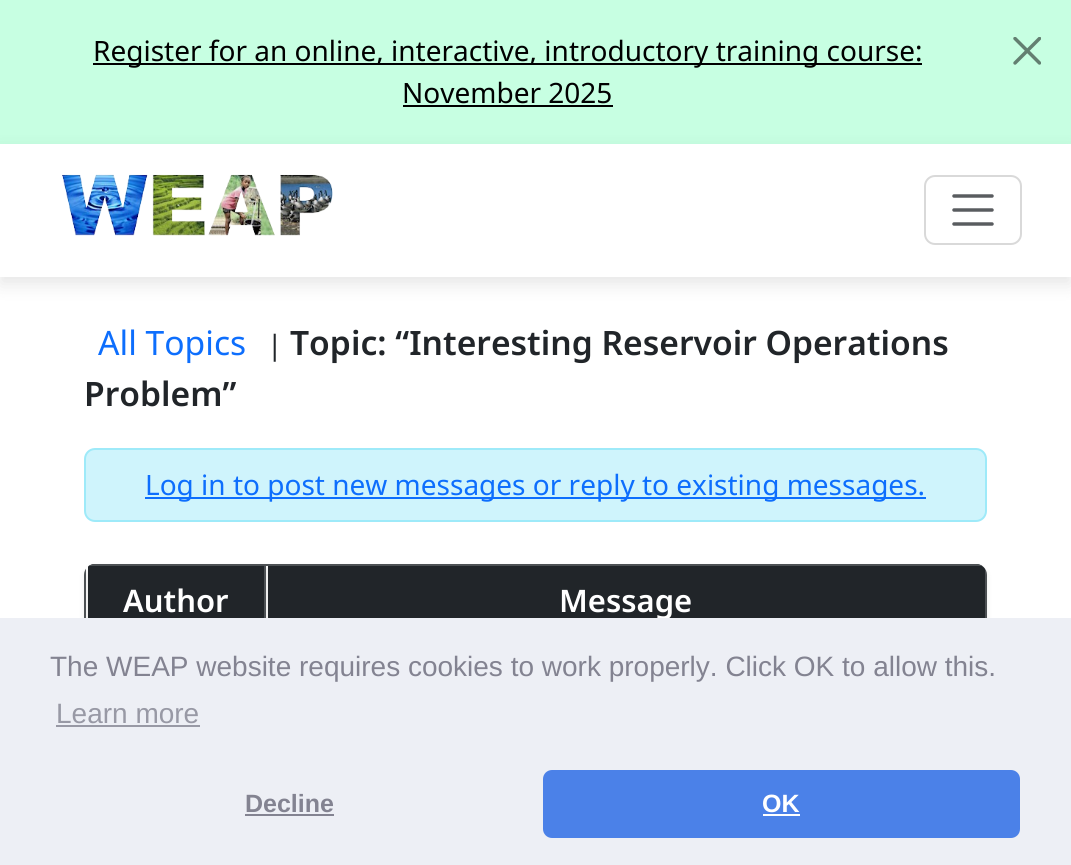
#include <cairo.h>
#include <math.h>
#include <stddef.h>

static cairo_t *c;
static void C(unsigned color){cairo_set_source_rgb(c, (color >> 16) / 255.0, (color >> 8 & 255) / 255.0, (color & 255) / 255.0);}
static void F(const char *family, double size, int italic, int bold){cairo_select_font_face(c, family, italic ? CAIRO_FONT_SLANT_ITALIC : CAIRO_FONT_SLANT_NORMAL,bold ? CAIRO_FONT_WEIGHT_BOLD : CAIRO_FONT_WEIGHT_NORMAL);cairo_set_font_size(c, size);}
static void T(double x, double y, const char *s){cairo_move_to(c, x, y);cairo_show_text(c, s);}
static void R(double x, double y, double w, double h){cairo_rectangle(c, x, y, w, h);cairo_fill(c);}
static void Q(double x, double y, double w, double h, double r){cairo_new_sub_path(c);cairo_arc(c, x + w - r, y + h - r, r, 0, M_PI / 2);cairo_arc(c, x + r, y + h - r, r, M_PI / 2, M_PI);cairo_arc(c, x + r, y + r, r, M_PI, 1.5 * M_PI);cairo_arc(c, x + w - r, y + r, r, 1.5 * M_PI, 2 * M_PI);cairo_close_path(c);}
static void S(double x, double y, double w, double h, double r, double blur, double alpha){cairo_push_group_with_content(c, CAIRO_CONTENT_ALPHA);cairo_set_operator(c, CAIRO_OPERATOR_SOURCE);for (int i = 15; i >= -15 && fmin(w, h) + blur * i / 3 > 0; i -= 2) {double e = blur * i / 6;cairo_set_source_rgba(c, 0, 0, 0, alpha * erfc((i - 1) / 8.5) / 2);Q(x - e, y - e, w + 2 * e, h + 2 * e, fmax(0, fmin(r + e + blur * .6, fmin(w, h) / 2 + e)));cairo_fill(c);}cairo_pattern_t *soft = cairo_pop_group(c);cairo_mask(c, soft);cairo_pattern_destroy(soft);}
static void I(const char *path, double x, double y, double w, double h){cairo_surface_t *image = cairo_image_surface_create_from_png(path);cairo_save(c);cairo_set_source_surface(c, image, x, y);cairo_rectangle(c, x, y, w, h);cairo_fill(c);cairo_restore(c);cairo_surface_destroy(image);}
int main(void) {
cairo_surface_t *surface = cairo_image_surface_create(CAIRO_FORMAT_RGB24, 1071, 865);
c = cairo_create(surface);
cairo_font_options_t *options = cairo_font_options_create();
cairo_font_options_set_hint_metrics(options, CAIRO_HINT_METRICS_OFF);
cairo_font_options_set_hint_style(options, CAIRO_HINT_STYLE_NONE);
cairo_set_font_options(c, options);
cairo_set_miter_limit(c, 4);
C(0xffffff);
cairo_paint(c);
C(0xc7ffe2);
R(0,0,1071,144);
C(0x000000);
R(93,63,829,2);
F("Noto Sans",28,0,0);
T(93,61,"Register for an online, interactive, introductory training course:");
I("1.png",1013,37,28,28);
T(402,103,"November 2025");
R(403,105,210,2);
C(0x000000);
S(0,151,1071,133,0,9,.1);
C(0xffffff);
R(0,144,1071,133);
I("2.png",62,174,271,62);
Q(925,176,96,68,10);
C(0xd9d9d9);
cairo_stroke(c);
cairo_new_path(c);
cairo_move_to(c,954,196);
cairo_line_to(c,992,196);
cairo_move_to(c,954,210);
cairo_line_to(c,992,210);
cairo_move_to(c,954,224);
cairo_line_to(c,992,224);
C(0x595c5f);
cairo_set_line_width(c,3.5);
cairo_set_line_cap(c,CAIRO_LINE_CAP_ROUND);
cairo_stroke(c);
F("Noto Sans",33.6,0,0);
C(0x0d6efd);
T(98,355,"All Topics");
F("Noto Sans",28,0,0);
C(0x212529);
T(267,355,"|");
F("Noto Sans SemiBold",33.6,0,0);
T(290,355,"Topic: “Interesting Reservoir Operations");
T(84,406,"Problem”");
C(0xcff4fc);
Q(85,449,901,72,10);
cairo_fill_preserve(c);
C(0x9eeaf9);
cairo_set_line_width(c,2);
cairo_set_line_cap(c,CAIRO_LINE_CAP_BUTT);
cairo_stroke(c);
C(0x0d6efd);
R(145,497,781,2);
F("Noto Sans",28,0,0);
T(145,495,"Log in to post new messages or reply to existing messages.");
C(0x000000);
S(84,567,903,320,11,3.5,.07);
cairo_save(c);
Q(84,564,903,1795,11);
cairo_clip(c);
C(0x212529);
R(88,564,176,54);
R(268,564,717,54);
C(0x4d5154);
R(84,564,903,2);
R(84,564,2,54);
cairo_restore(c);
F("Noto Sans SemiBold",31,0,0);
C(0xffffff);
T(123,612,"Author");
cairo_save(c);
Q(84,564,903,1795,11);
cairo_clip(c);
C(0x4d5154);
R(985,564,2,54);
cairo_restore(c);
C(0x4d5154);
R(264,564,2,54);
C(0xffffff);
T(559,612,"Message");
C(0xedeff5);
R(0,618,1071,247);
F("Liberation Sans",28,0,0);
C(0x838391);
T(50,676,"The WEAP website requires cookies to work properly. Click OK to allow this.");
C(0x9899a5);
T(56,723,"Learn more");
R(56,725,144,2);
F("Liberation Sans",25,0,1);
C(0x838391);
T(245,812,"Decline");
R(245,814,89,2);
C(0x4b81e8);
Q(543,770,477,68,9);
cairo_fill(c);
C(0xffffff);
T(762,812,"OK");
R(763,814,37,2);
cairo_surface_write_to_png(surface, "o.png");
cairo_font_options_destroy(options);
cairo_destroy(c);
cairo_surface_destroy(surface);
return 0;
}
